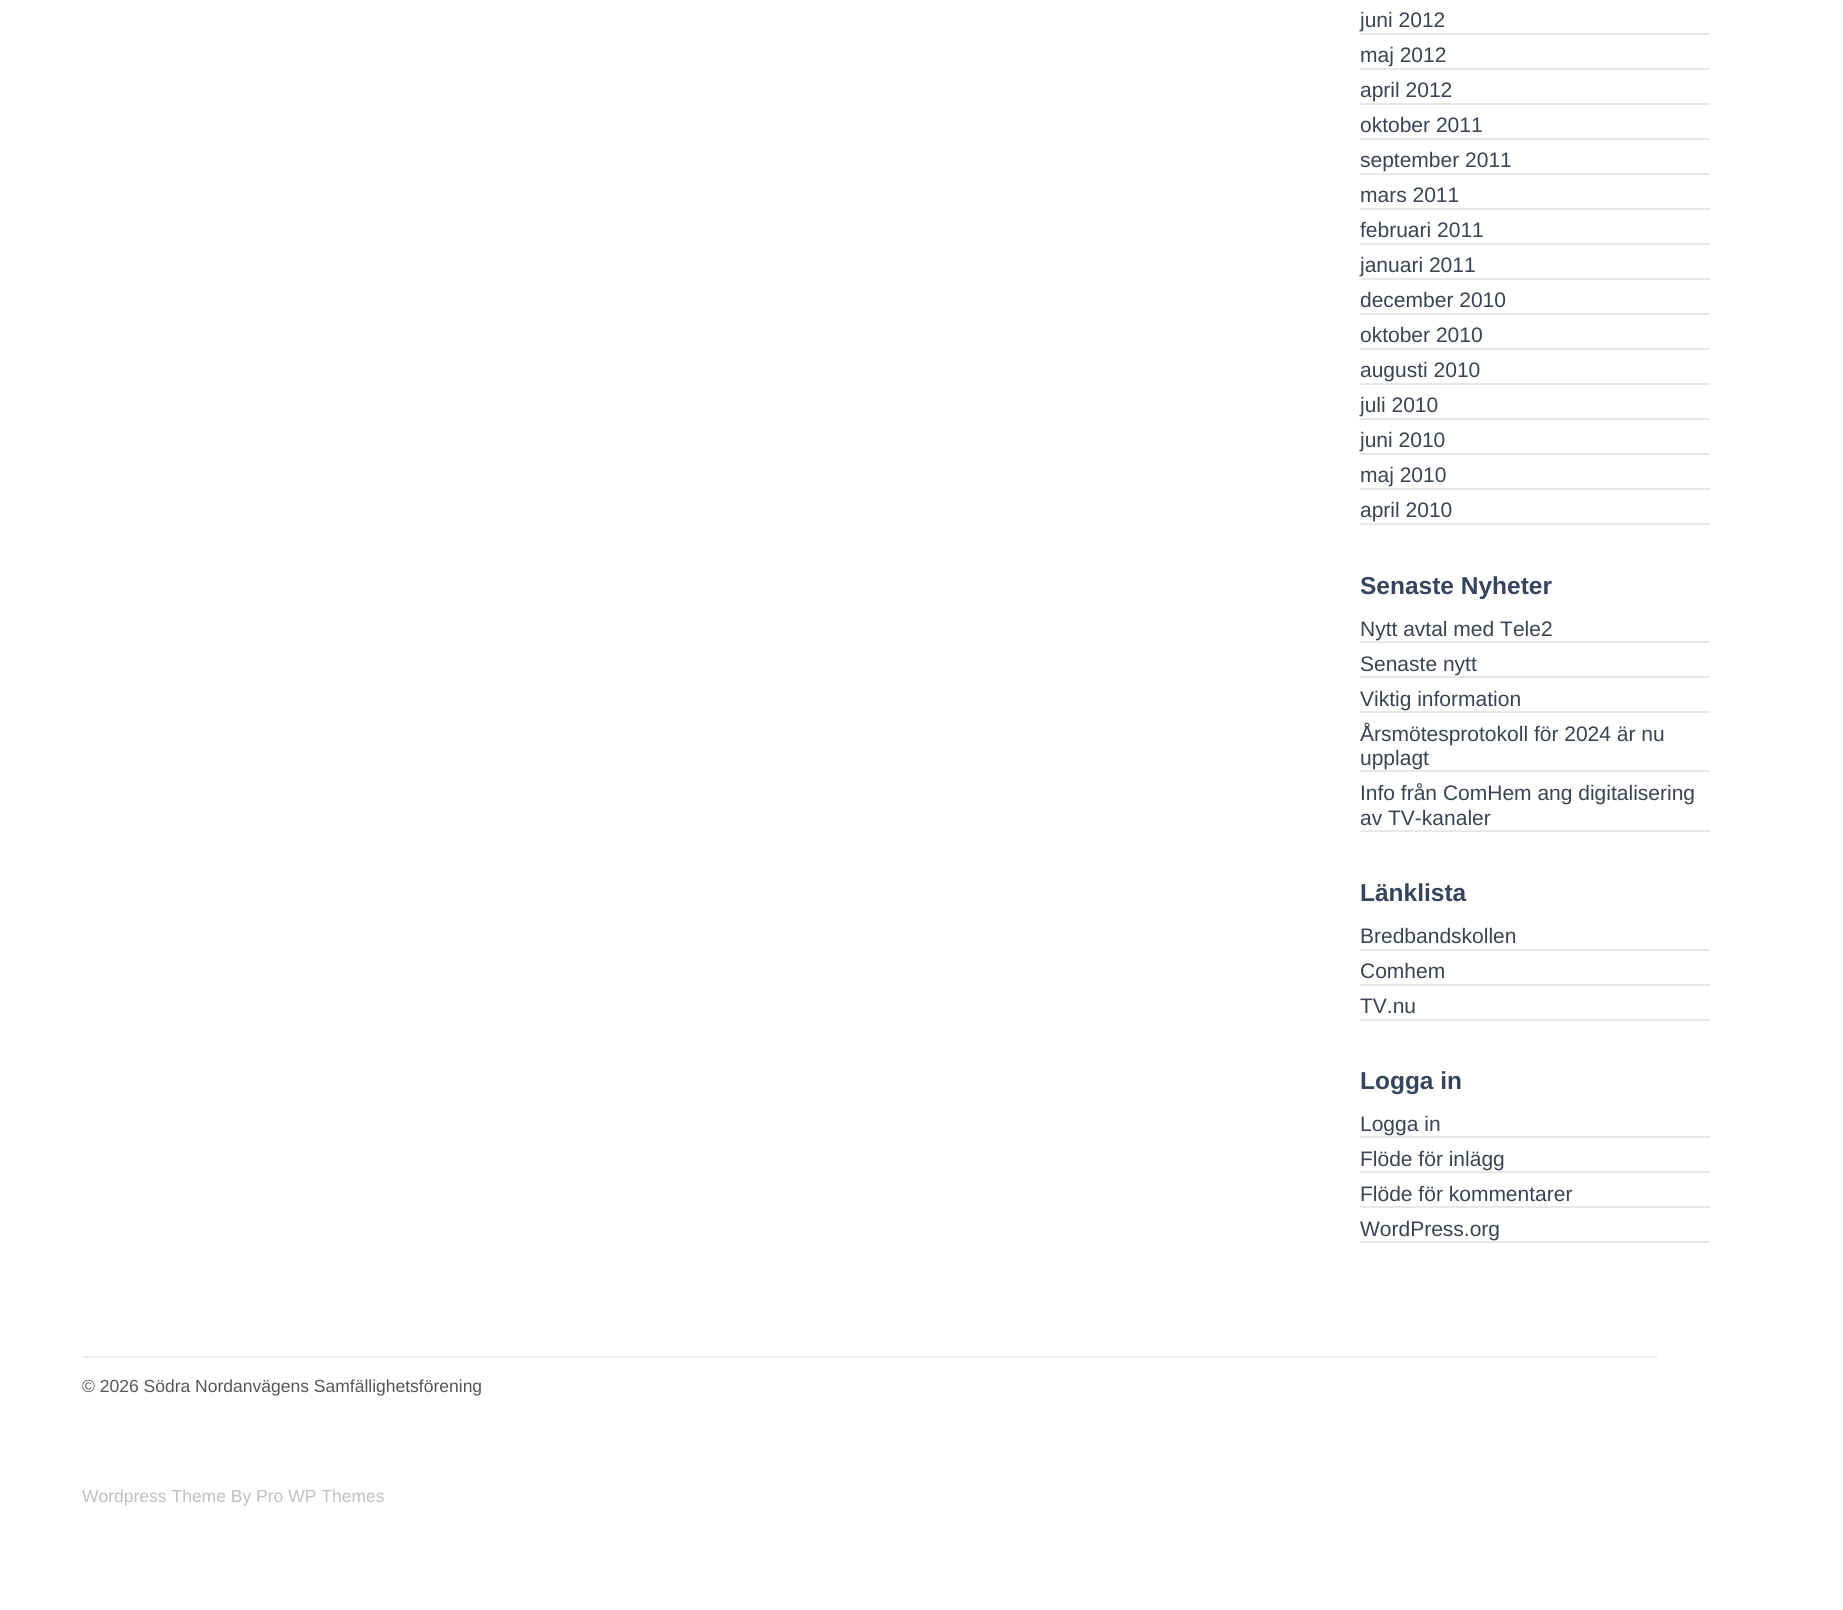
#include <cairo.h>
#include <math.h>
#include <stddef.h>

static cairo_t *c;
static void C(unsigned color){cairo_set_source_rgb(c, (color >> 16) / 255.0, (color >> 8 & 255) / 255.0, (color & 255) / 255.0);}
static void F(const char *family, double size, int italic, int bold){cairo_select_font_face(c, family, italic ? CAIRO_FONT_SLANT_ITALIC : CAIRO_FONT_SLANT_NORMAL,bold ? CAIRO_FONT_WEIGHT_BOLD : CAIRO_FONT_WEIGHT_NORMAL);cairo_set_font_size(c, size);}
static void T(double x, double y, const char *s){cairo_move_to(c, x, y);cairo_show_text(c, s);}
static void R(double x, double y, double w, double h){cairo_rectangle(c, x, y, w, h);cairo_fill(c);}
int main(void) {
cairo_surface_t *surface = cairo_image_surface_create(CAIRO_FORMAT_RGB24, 1843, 1610);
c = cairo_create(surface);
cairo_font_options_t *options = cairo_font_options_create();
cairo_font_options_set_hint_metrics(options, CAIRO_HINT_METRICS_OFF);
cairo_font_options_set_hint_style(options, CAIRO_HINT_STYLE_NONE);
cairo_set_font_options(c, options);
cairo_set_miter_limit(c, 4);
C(0xffffff);
cairo_paint(c);
C(0xe7e7e7);
R(1360,33,350,2);
F("Liberation Sans",21,0,0);
C(0x3a4353);
T(1360,27,"juni 2012");
C(0xe7e7e7);
R(1360,68,350,2);
C(0x3a4353);
T(1360,62,"maj 2012");
C(0xe7e7e7);
R(1360,103,350,2);
C(0x3a4353);
T(1360,97,"april 2012");
C(0xe7e7e7);
R(1360,138,350,2);
C(0x3a4353);
T(1360,132,"oktober 2011");
C(0xe7e7e7);
R(1360,173,350,2);
C(0x3a4353);
T(1360,167,"september 2011");
C(0xe7e7e7);
R(1360,208,350,2);
C(0x3a4353);
T(1360,202,"mars 2011");
C(0xe7e7e7);
R(1360,243,350,2);
C(0x3a4353);
T(1360,237,"februari 2011");
C(0xe7e7e7);
R(1360,278,350,2);
C(0x3a4353);
T(1360,272,"januari 2011");
C(0xe7e7e7);
R(1360,313,350,2);
C(0x3a4353);
T(1360,307,"december 2010");
C(0xe7e7e7);
R(1360,348,350,2);
C(0x3a4353);
T(1360,342,"oktober 2010");
C(0xe7e7e7);
R(1360,383,350,2);
C(0x3a4353);
T(1360,377,"augusti 2010");
C(0xe7e7e7);
R(1360,418,350,2);
C(0x3a4353);
T(1360,412,"juli 2010");
C(0xe7e7e7);
R(1360,453,350,2);
C(0x3a4353);
T(1360,447,"juni 2010");
C(0xe7e7e7);
R(1360,488,350,2);
C(0x3a4353);
T(1360,482,"maj 2010");
C(0xe7e7e7);
R(1360,523,350,2);
C(0x3a4353);
T(1360,517,"april 2010");
F("Liberation Sans",24.5,0,1);
C(0x36445e);
T(1360,594,"Senaste Nyheter");
C(0xe7e7e7);
R(1360,641,350,2);
F("Liberation Sans",21,0,0);
C(0x3a4353);
T(1360,636,"Nytt avtal med Tele2");
C(0xe7e7e7);
R(1360,676,350,2);
C(0x3a4353);
T(1360,671,"Senaste nytt");
C(0xe7e7e7);
R(1360,711,350,2);
C(0x3a4353);
T(1360,706,"Viktig information");
C(0xe7e7e7);
R(1360,770,350,2);
C(0x3a4353);
T(1360,741,"Årsmötesprotokoll för 2024 är nu");
T(1360,765,"upplagt");
C(0xe7e7e7);
R(1360,830,350,2);
C(0x3a4353);
T(1360,800,"Info från ComHem ang digitalisering");
T(1360,825,"av TV-kanaler");
F("Liberation Sans",24.5,0,1);
C(0x36445e);
T(1360,901,"Länklista");
C(0xe7e7e7);
R(1360,949,350,2);
F("Liberation Sans",21,0,0);
C(0x3a4353);
T(1360,943,"Bredbandskollen");
C(0xe7e7e7);
R(1360,984,350,2);
C(0x3a4353);
T(1360,978,"Comhem");
C(0xe7e7e7);
R(1360,1019,350,2);
C(0x3a4353);
T(1360,1013,"TV.nu");
F("Liberation Sans",24.5,0,1);
C(0x36445e);
T(1360,1089,"Logga in");
C(0xe7e7e7);
R(1360,1136,350,2);
F("Liberation Sans",21,0,0);
C(0x3a4353);
T(1360,1131,"Logga in");
C(0xe7e7e7);
R(1360,1171,350,2);
C(0x3a4353);
T(1360,1166,"Flöde för inlägg");
C(0xe7e7e7);
R(1360,1206,350,2);
C(0x3a4353);
T(1360,1201,"Flöde för kommentarer");
C(0xe7e7e7);
R(1360,1241,350,2);
C(0x3a4353);
T(1360,1236,"WordPress.org");
C(0xececec);
R(82,1356,1575,2);
F("Liberation Sans",17.5,0,0);
C(0x565656);
T(82,1392,"© 2026 Södra Nordanvägens Samfällighetsförening");
C(0xc0c0c0);
T(82,1502,"Wordpress Theme By Pro WP Themes");
cairo_surface_write_to_png(surface, "o.png");
cairo_font_options_destroy(options);
cairo_destroy(c);
cairo_surface_destroy(surface);
return 0;
}
